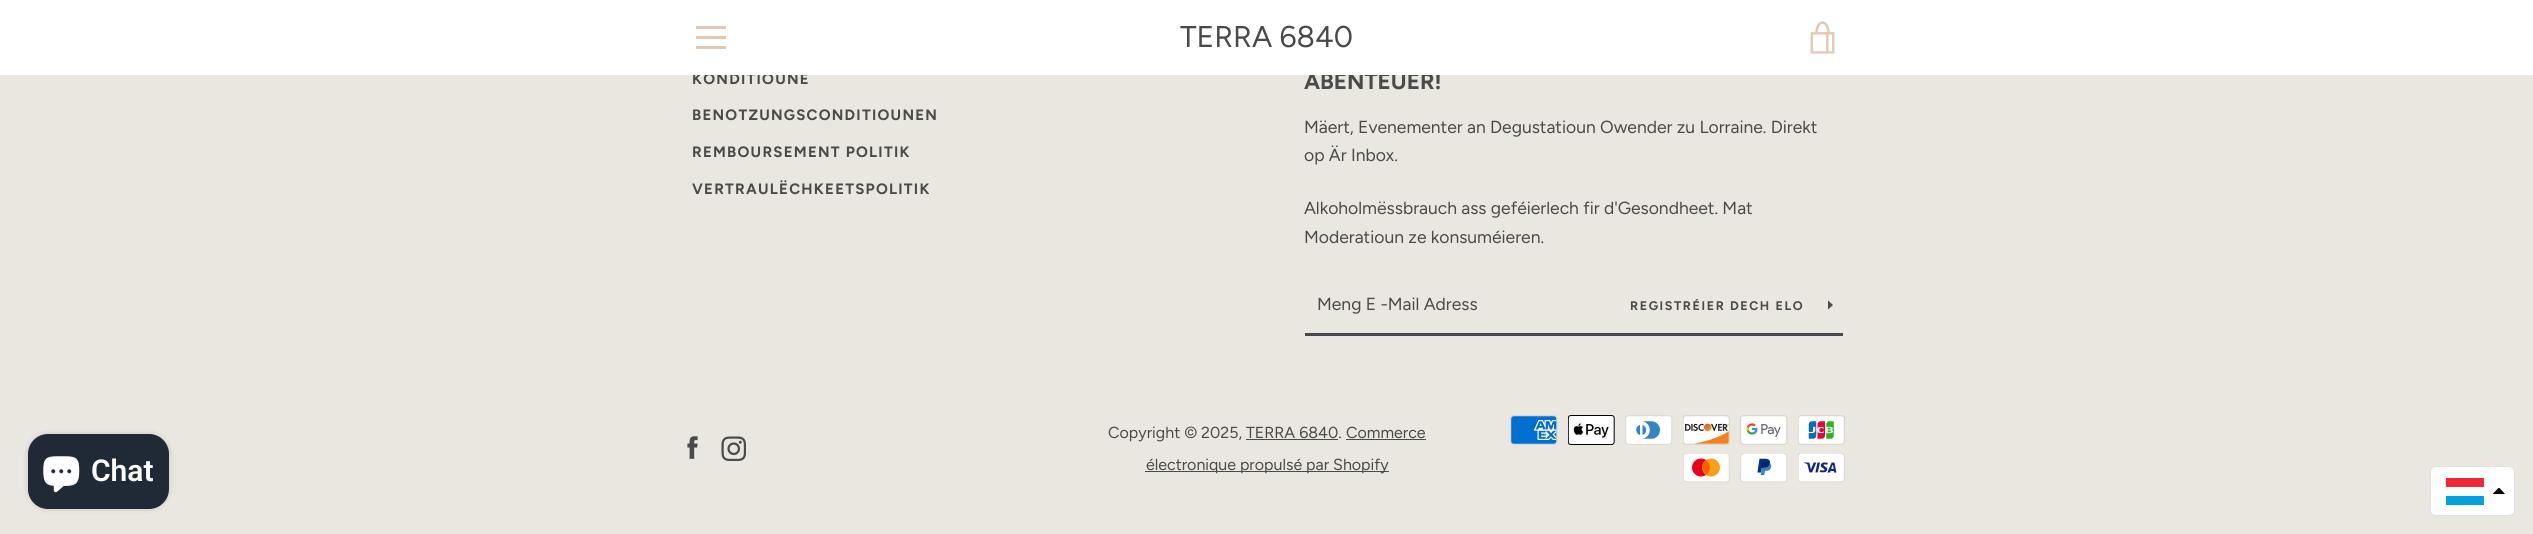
#include <cairo.h>
#include <math.h>
#include <stddef.h>

static cairo_t *c;
static void C(unsigned color){cairo_set_source_rgb(c, (color >> 16) / 255.0, (color >> 8 & 255) / 255.0, (color & 255) / 255.0);}
static void F(const char *family, double size, int italic, int bold){cairo_select_font_face(c, family, italic ? CAIRO_FONT_SLANT_ITALIC : CAIRO_FONT_SLANT_NORMAL,bold ? CAIRO_FONT_WEIGHT_BOLD : CAIRO_FONT_WEIGHT_NORMAL);cairo_set_font_size(c, size);}
static void T(double x, double y, const char *s){cairo_move_to(c, x, y);cairo_show_text(c, s);}
static void L(double x, double y, const char *s, double letter, double word){cairo_move_to(c, x, y);while (*s) {char ch[5] = {0};int n = 0;do ch[n++] = *s++; while ((*s & 0xC0) == 0x80);cairo_show_text(c, ch);cairo_rel_move_to(c, letter + word * (*ch == ' '), 0);}}
static void R(double x, double y, double w, double h){cairo_rectangle(c, x, y, w, h);cairo_fill(c);}
static void Q(double x, double y, double w, double h, double r){cairo_new_sub_path(c);cairo_arc(c, x + w - r, y + h - r, r, 0, M_PI / 2);cairo_arc(c, x + r, y + h - r, r, M_PI / 2, M_PI);cairo_arc(c, x + r, y + r, r, M_PI, 1.5 * M_PI);cairo_arc(c, x + w - r, y + r, r, 1.5 * M_PI, 2 * M_PI);cairo_close_path(c);}
static void S(double x, double y, double w, double h, double r, double blur, double alpha){cairo_push_group_with_content(c, CAIRO_CONTENT_ALPHA);cairo_set_operator(c, CAIRO_OPERATOR_SOURCE);for (int i = 15; i >= -15 && fmin(w, h) + blur * i / 3 > 0; i -= 2) {double e = blur * i / 6;cairo_set_source_rgba(c, 0, 0, 0, alpha * erfc((i - 1) / 8.5) / 2);Q(x - e, y - e, w + 2 * e, h + 2 * e, fmax(0, fmin(r + e + blur * .6, fmin(w, h) / 2 + e)));cairo_fill(c);}cairo_pattern_t *soft = cairo_pop_group(c);cairo_mask(c, soft);cairo_pattern_destroy(soft);}
static void I(const char *path, double x, double y, double w, double h){cairo_surface_t *image = cairo_image_surface_create_from_png(path);cairo_save(c);cairo_set_source_surface(c, image, x, y);cairo_rectangle(c, x, y, w, h);cairo_fill(c);cairo_restore(c);cairo_surface_destroy(image);}
int main(void) {
cairo_surface_t *surface = cairo_image_surface_create(CAIRO_FORMAT_RGB24, 2533, 534);
c = cairo_create(surface);
cairo_font_options_t *options = cairo_font_options_create();
cairo_font_options_set_hint_metrics(options, CAIRO_HINT_METRICS_OFF);
cairo_font_options_set_hint_style(options, CAIRO_HINT_STYLE_NONE);
cairo_set_font_options(c, options);
cairo_set_miter_limit(c, 4);
C(0xeae7e0);
cairo_paint(c);
F("Figtree",15,0,1);
C(0x4a4a4a);
L(692,84,"KONDITIOUNE",1.25,0);
F("Figtree",22.5,0,1);
T(1304,89,"ABENTEUER!");
C(0xffffff);
R(0,0,2533,75);
C(0xe1c9b4);
R(696,26,30,3);
R(696,36,30,3);
R(696,46,30,3);
F("Figtree",30,0,0);
C(0x4a4a4a);
T(1180,47,"TERRA 6840");
I("1.png",1810,21,25,33);
C(0x000000);
S(28,434,141,75,20,3,.15);
C(0x202a36);
Q(28,434,141,75,20);
cairo_fill(c);
I("2.png",43,456,37,37);
F("Roboto SemiBold",30,0,0);
C(0xffffff);
T(91,481,"Chat");
F("Figtree",15,0,1);
C(0x4a4a4a);
L(692,120,"BENOTZUNGSCONDITIOUNEN",1.25,0);
L(692,157,"REMBOURSEMENT POLITIK",1.25,0);
L(692,194,"VERTRAULËCHKEETSPOLITIK",1.25,0);
F("Figtree",17.5,0,0);
T(1304,133,"Mäert, Evenementer an Degustatioun Owender zu Lorraine. Direkt");
T(1304,161,"op Är Inbox.");
T(1304,214,"Alkoholmëssbrauch ass geféierlech fir d'Gesondheet. Mat");
T(1304,243,"Moderatioun ze konsuméieren.");
R(1305,333,538,3);
T(1317,310,"Meng E -Mail Adress");
F("Figtree",12.5,0,1);
L(1630,310,"REGISTRÉIER DECH ELO",1.6,0);
cairo_new_path(c);
cairo_move_to(c,1833,305);
cairo_line_to(c,1828,309.5);
cairo_line_to(c,1828,300.5);
cairo_close_path(c);
cairo_fill(c);
I("3.png",687,436,11,23);
I("4.png",721,436,25,25);
F("Figtree",16,0,0);
T(1108,438,"Copyright © 2025, TERRA 6840.");
R(1246,439,92,1);
T(1346,438,"Commerce");
R(1346,439,80,1);
R(1145,471,244,1);
T(1146,470,"électronique propulsé par Shopify");
I("5.png",1510,415,48,30);
I("6.png",1568,415,47,30);
I("7.png",1625,415,48,30);
I("8.png",1683,415,47,30);
I("9.png",1740,415,48,30);
I("10.png",1798,415,47,30);
I("11.png",1683,453,47,30);
I("12.png",1740,453,48,30);
I("13.png",1798,453,47,30);
C(0xffffff);
Q(2430.5,466.5,84,49,5.5);
cairo_fill_preserve(c);
C(0xe0e0e0);
cairo_set_line_width(c,1);
cairo_stroke(c);
C(0x00a1de);
R(2446,496,38,9);
C(0xed2939);
R(2446,478,38,9);
cairo_save(c);
cairo_rectangle(c,2493,488,12,6);
cairo_clip(c);
C(0x000000);
cairo_set_fill_rule(c,CAIRO_FILL_RULE_EVEN_ODD);
cairo_new_path(c);
cairo_move_to(c,2492.5,494);
cairo_line_to(c,2499,487.5);
cairo_line_to(c,2505,494);
cairo_close_path(c);
cairo_fill(c);
cairo_restore(c);
cairo_surface_write_to_png(surface, "o.png");
cairo_font_options_destroy(options);
cairo_destroy(c);
cairo_surface_destroy(surface);
return 0;
}
